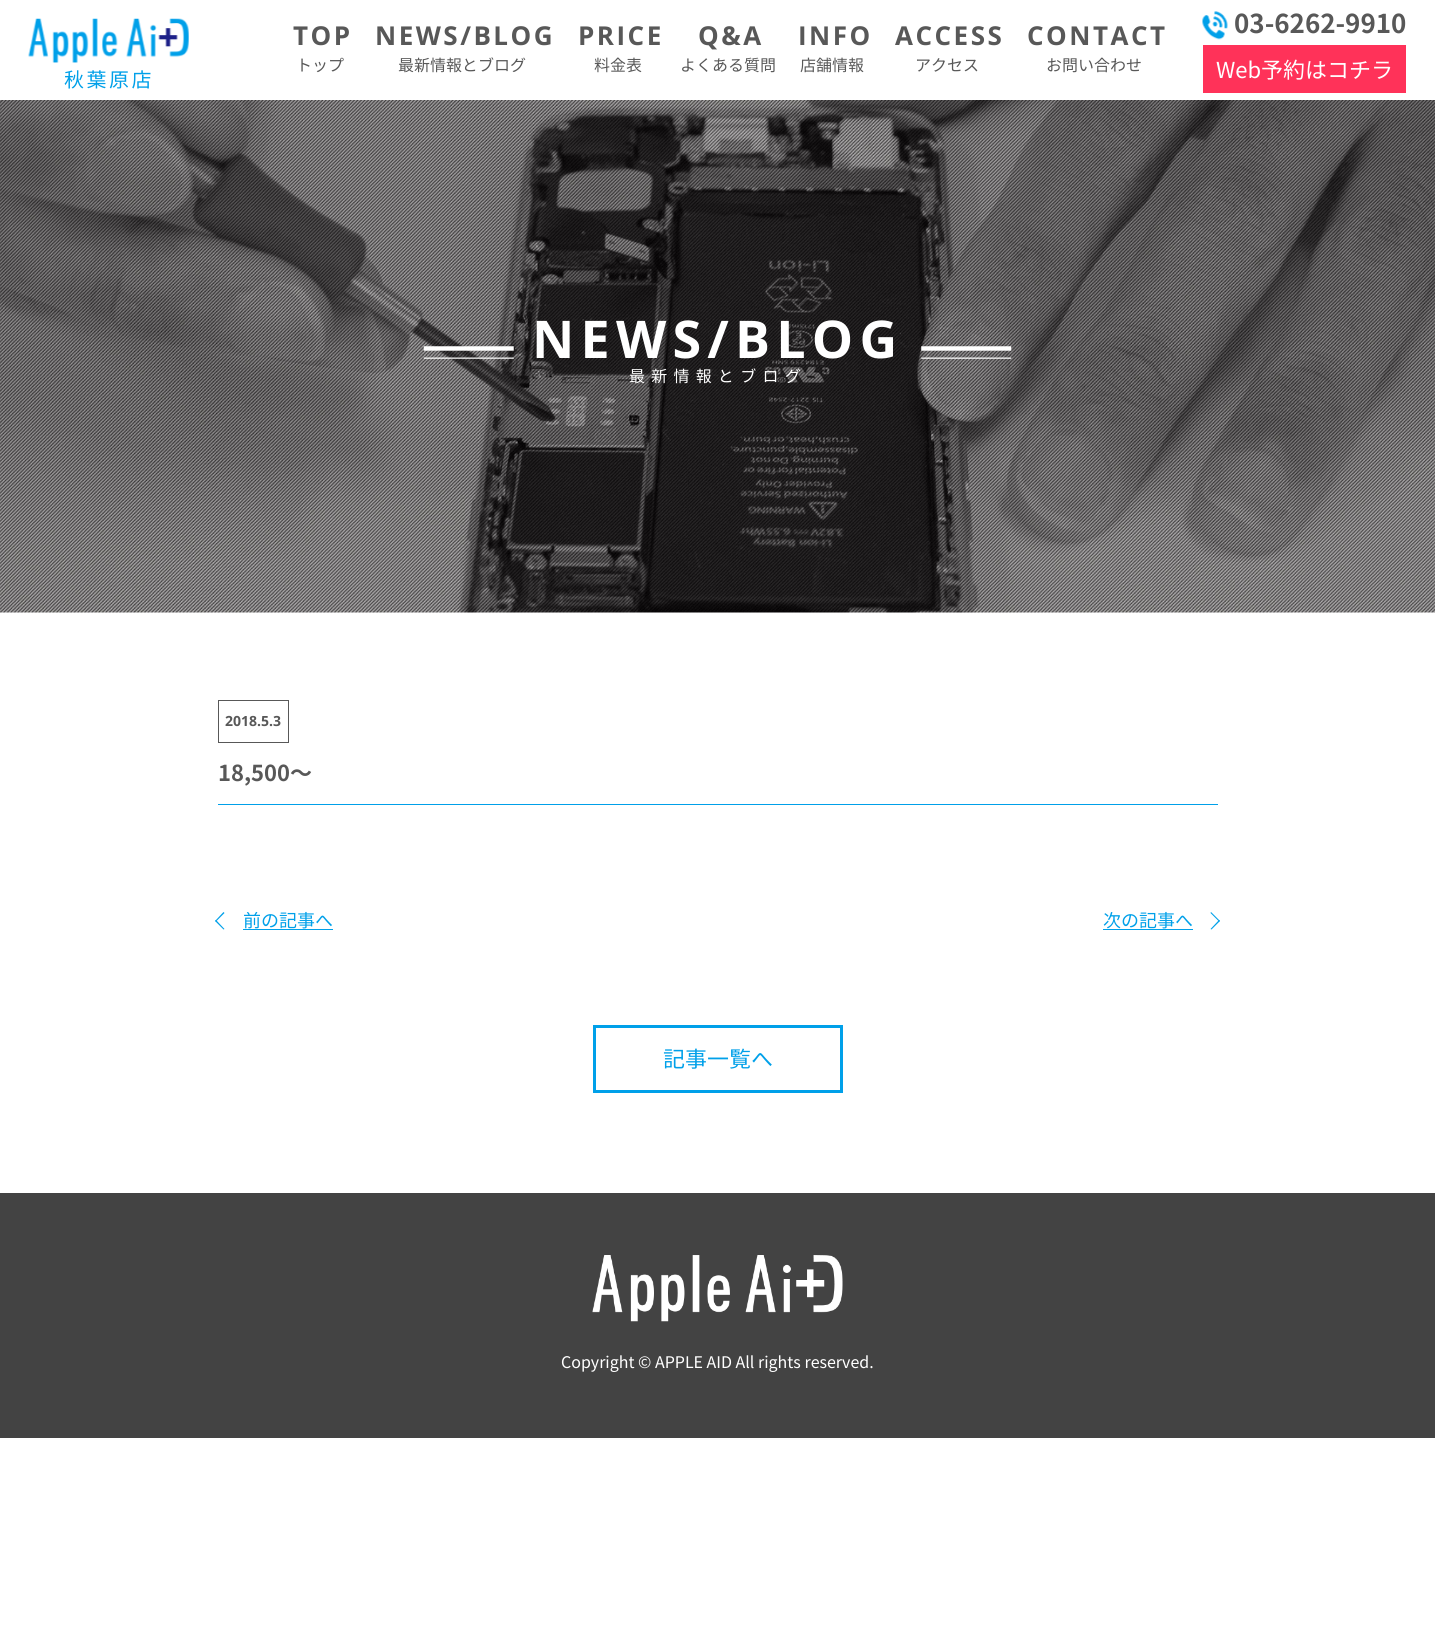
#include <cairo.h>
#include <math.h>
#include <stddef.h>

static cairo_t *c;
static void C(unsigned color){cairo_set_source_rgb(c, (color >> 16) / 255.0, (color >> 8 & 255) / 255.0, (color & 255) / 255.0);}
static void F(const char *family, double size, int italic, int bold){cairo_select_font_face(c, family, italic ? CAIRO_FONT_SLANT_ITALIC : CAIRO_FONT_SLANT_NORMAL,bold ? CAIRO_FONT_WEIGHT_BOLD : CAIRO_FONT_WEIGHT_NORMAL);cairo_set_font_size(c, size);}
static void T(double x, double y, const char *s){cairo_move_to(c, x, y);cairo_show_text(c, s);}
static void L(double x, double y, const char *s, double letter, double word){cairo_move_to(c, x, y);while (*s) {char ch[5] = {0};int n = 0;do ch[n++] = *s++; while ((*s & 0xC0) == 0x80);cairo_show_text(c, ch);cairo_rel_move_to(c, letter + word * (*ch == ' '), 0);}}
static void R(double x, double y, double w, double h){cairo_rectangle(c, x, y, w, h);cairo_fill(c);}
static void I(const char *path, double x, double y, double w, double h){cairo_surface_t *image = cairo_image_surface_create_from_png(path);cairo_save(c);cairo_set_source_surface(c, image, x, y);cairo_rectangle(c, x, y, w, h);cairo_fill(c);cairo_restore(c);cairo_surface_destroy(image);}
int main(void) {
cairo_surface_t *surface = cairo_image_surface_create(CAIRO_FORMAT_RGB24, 1435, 1643);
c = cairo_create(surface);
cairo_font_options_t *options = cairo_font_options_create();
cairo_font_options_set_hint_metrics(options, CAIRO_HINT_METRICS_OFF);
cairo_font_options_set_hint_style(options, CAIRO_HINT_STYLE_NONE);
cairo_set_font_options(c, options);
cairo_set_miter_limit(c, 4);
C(0xffffff);
cairo_paint(c);
F("Open Sans",26,0,1);
C(0x585858);
L(293,45,"TOP",2.5,0);
F("Noto Sans JP",16,0,0);
T(296,71,"トップ");
F("Open Sans",26,0,1);
L(375,45,"NEWS/BLOG",2.5,0);
F("Noto Sans JP",16,0,0);
T(398,71,"最新情報とブログ");
F("Open Sans",26,0,1);
L(578,45,"PRICE",2.5,0);
F("Noto Sans JP",16,0,0);
T(594,71,"料金表");
F("Open Sans",26,0,1);
L(698,45,"Q&A",2.5,0);
F("Noto Sans JP",16,0,0);
T(680,71,"よくある質問");
F("Open Sans",26,0,1);
L(798,45,"INFO",2.5,0);
F("Noto Sans JP",16,0,0);
T(800,71,"店舗情報");
F("Open Sans",26,0,1);
L(895,45,"ACCESS",2.5,0);
F("Noto Sans JP",16,0,0);
T(915,71,"アクセス");
F("Open Sans",26,0,1);
L(1027,45,"CONTACT",2.5,0);
F("Noto Sans JP",16,0,0);
T(1046,71,"お問い合わせ");
I("1.png",1202,11,26,29);
F("Noto Sans JP",26,0,1);
T(1234,33,"03-6262-9910");
C(0xff3259);
R(1203,45,203,48);
F("Noto Sans JP",22,0,0);
C(0xffffff);
T(1216,78,"Web予約はコチラ");
I("2.png",28,18,161,45);
F("Noto Sans JP",20,0,0);
C(0x00a0e9);
L(64,87,"秋葉原店",2.5,0);
I("3.png",0,100,1435,513);
I("4.png",423,346,91,13);
F("Open Sans",52,0,1);
C(0xffffff);
L(532,358,"NEWS/BLOG",6.25,0);
I("5.png",921,346,91,13);
F("Noto Sans JP",16,0,0);
L(629,382,"最新情報とブログ",6.25,0);
cairo_rectangle(c,218.5,700.5,70,42);
C(0x585858);
cairo_set_line_width(c,1);
cairo_stroke(c);
F("Open Sans",14,0,1);
T(225,726,"2018.5.3");
C(0x00a0e9);
R(218,804,1000,1);
F("Noto Sans JP",22,0,1);
C(0x585858);
T(218,781,"18,500〜");
C(0x00a0e9);
cairo_new_path(c);
cairo_move_to(c,215,921);
cairo_line_to(c,223.5,912);
cairo_line_to(c,224.5,913);
cairo_line_to(c,216,921.5);
cairo_close_path(c);
cairo_fill(c);
cairo_new_path(c);
cairo_move_to(c,215,921);
cairo_line_to(c,216,920);
cairo_line_to(c,224.5,929);
cairo_line_to(c,223.5,929.5);
cairo_close_path(c);
cairo_fill(c);
F("Noto Sans JP",18,0,0);
T(243,927,"前の記事へ");
R(243,929,90,1);
T(1103,927,"次の記事へ");
R(1103,929,90,1);
cairo_new_path(c);
cairo_move_to(c,1220,921);
cairo_line_to(c,1211.5,929.5);
cairo_line_to(c,1210.5,929);
cairo_line_to(c,1219,920);
cairo_close_path(c);
cairo_fill(c);
cairo_new_path(c);
cairo_move_to(c,1220,921);
cairo_line_to(c,1219,921.5);
cairo_line_to(c,1210.5,913);
cairo_line_to(c,1211,912);
cairo_close_path(c);
cairo_fill(c);
cairo_rectangle(c,594.5,1026.5,247,65);
cairo_set_line_width(c,3);
cairo_stroke(c);
F("Noto Sans JP",22,0,0);
T(663,1067,"記事一覧へ");
C(0x434343);
R(0,1193,1435,245);
I("6.png",592,1255,251,67);
F("Noto Sans JP",16,0,0);
C(0xffffff);
T(561,1368,"Copyright © APPLE AID All rights reserved.");
cairo_surface_write_to_png(surface, "o.png");
cairo_font_options_destroy(options);
cairo_destroy(c);
cairo_surface_destroy(surface);
return 0;
}
